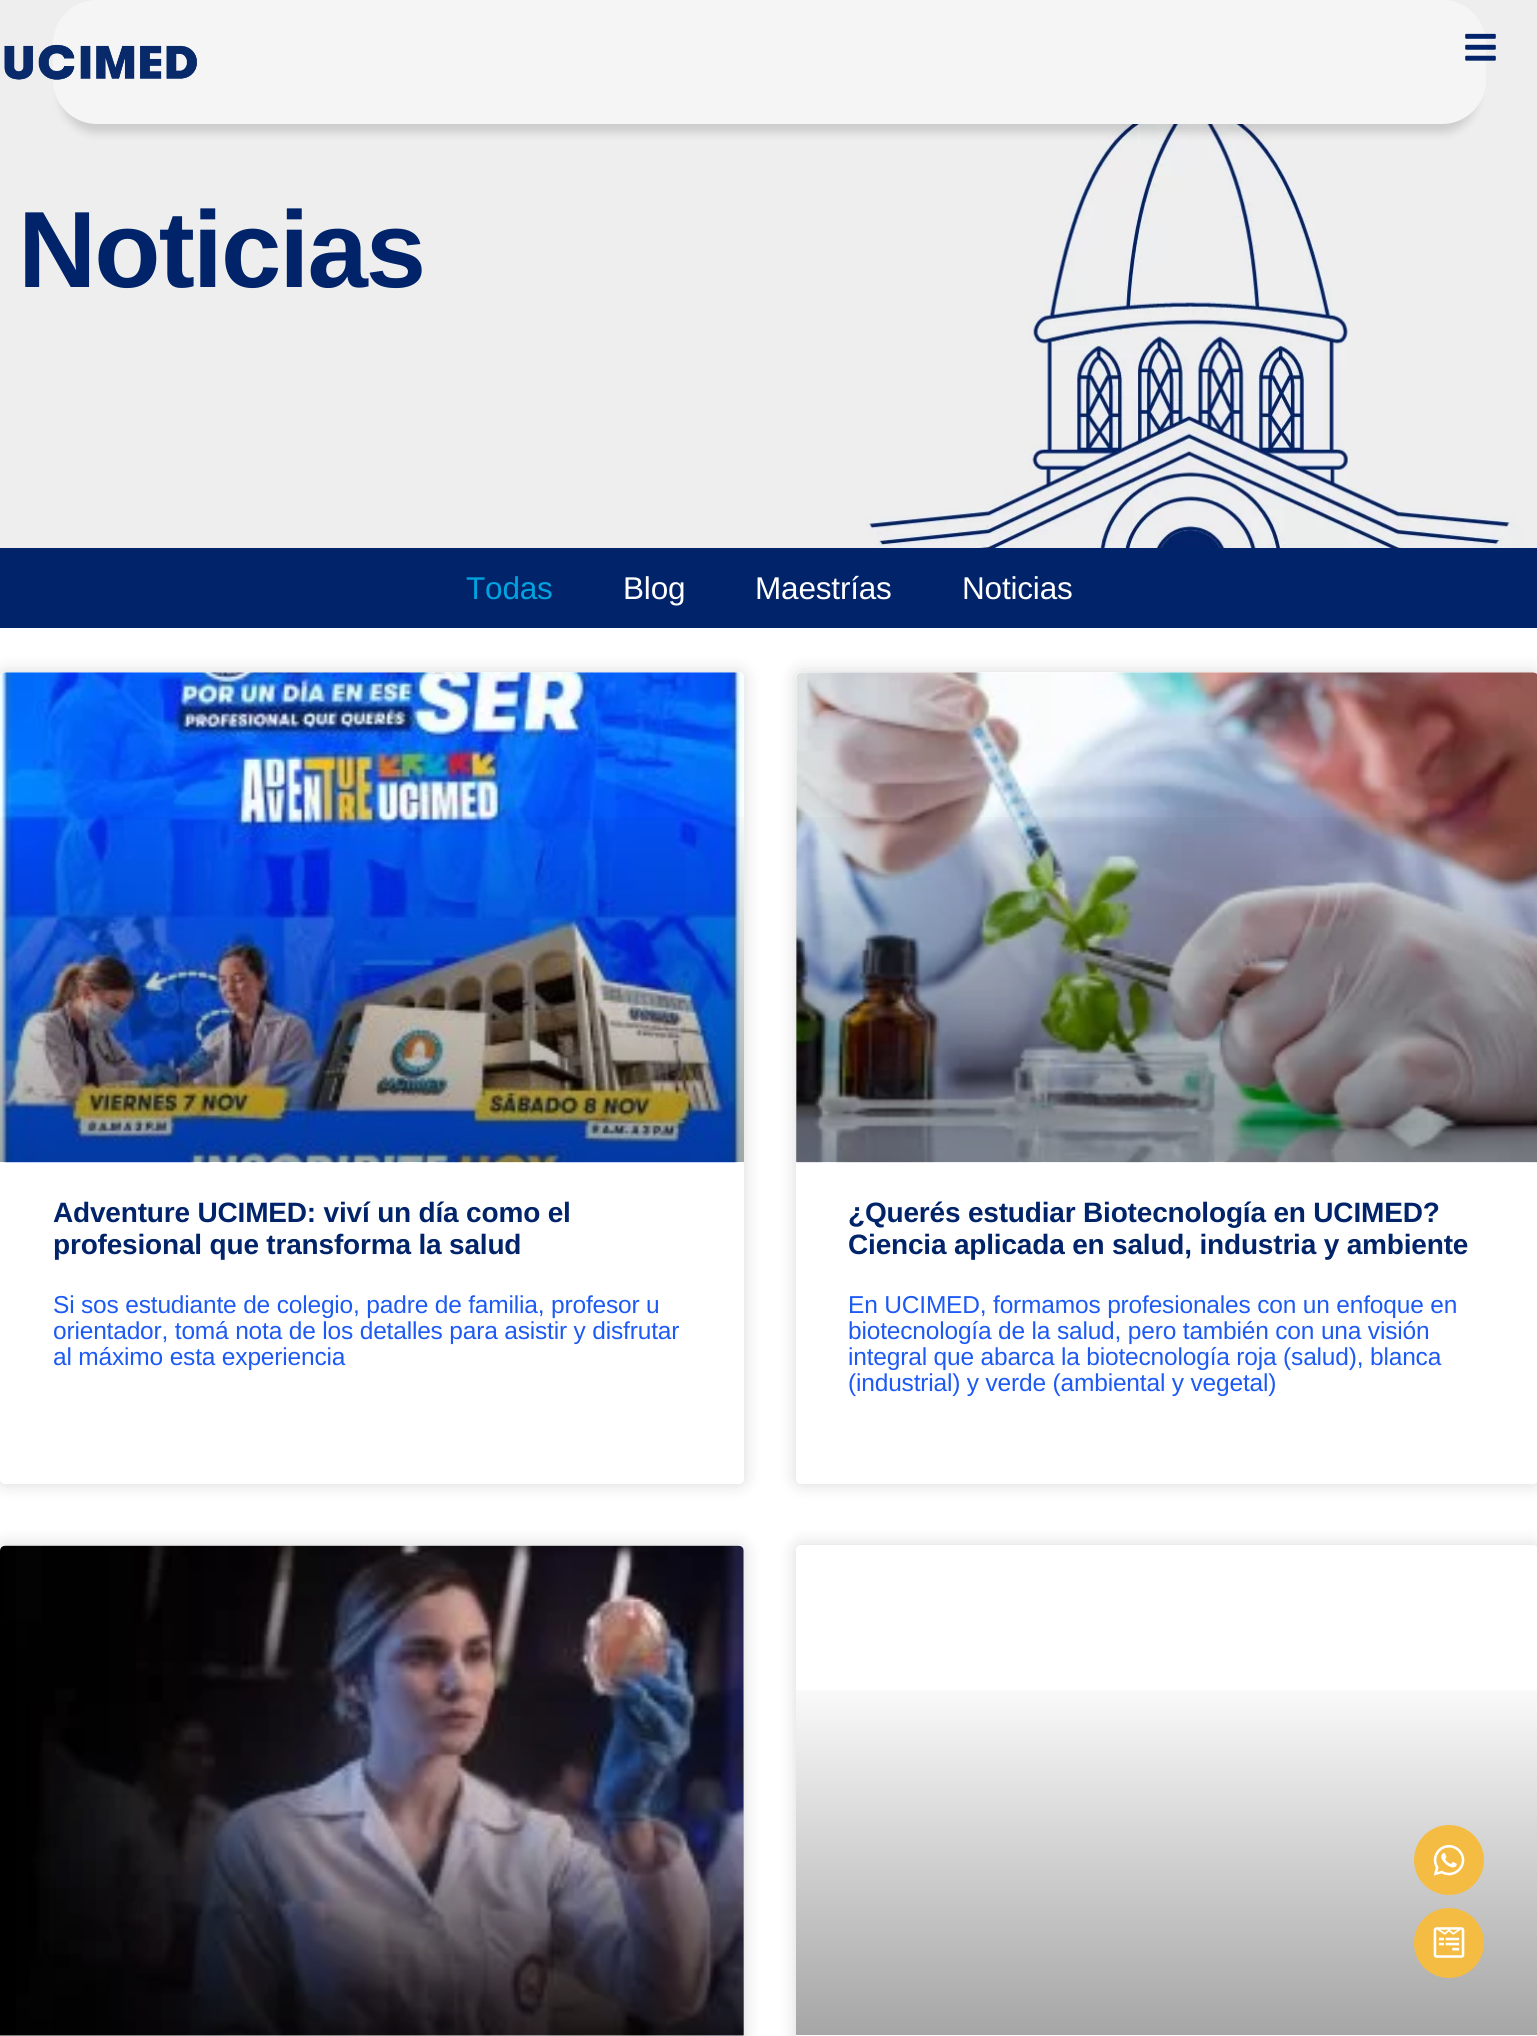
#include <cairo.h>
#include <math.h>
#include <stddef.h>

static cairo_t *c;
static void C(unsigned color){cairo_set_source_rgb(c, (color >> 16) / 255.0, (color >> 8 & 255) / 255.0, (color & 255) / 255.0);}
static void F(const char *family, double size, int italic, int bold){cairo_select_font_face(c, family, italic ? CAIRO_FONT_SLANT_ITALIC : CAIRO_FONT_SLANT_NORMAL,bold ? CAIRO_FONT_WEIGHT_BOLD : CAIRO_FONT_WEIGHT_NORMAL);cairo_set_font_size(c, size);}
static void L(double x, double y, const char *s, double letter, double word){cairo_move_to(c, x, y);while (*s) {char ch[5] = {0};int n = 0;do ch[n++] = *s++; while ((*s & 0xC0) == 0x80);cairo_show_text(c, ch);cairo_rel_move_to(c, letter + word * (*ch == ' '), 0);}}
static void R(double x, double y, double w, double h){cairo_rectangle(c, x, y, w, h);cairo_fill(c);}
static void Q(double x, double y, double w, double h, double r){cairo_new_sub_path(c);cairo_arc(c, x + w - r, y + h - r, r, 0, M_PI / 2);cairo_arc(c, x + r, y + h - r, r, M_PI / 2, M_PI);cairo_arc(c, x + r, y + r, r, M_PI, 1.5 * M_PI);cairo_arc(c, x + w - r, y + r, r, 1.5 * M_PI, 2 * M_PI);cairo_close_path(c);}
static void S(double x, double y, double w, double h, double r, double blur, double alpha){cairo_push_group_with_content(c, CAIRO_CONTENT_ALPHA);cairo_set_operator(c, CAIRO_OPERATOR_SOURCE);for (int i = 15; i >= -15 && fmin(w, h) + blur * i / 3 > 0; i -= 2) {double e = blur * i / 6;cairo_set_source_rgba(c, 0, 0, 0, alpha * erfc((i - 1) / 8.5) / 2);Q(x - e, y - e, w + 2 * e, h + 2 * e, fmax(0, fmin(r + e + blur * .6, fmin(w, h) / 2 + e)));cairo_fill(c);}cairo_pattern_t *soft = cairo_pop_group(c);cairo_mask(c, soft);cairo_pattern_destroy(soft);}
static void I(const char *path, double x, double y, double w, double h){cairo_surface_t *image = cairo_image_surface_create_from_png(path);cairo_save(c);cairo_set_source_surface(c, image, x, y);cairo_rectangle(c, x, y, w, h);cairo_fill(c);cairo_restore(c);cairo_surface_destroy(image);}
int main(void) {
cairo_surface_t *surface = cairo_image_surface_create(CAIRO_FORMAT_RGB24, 1537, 2036);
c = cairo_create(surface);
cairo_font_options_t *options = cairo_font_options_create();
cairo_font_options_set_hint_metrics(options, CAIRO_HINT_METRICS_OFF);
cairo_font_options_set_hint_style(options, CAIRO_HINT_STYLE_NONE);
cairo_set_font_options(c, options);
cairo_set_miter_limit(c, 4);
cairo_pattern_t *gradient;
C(0xffffff);
cairo_paint(c);
I("5.png",0,0,1537,548);
C(0x000000);
S(61,26,1416,107,35,4.5,.14);
C(0xf5f5f5);
Q(53,0,1433,124,44);
cairo_fill(c);
I("1.png",4,44,193,36);
I("2.png",1465,33,31,28);
C(0x000000);
S(796,1545,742,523,5,9,.15);
C(0xffffff);
Q(796,1545,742,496,5);
cairo_fill(c);
gradient = cairo_pattern_create_linear(1167,2035,1167,1545);
cairo_pattern_add_color_stop_rgba(gradient,0,0,0,0,.35);
cairo_pattern_add_color_stop_rgba(gradient,.75,0,0,0,0);
cairo_set_source(c,gradient);
cairo_pattern_destroy(gradient);
R(796,1690,741,345);
C(0xf4bc43);
cairo_arc(c,1449,1860,35,0,2 * M_PI);
cairo_fill(c);
I("3.png",1433,1844,32,32);
cairo_arc(c,1449,1943,35,0,2 * M_PI);
cairo_fill(c);
I("4.png",1433,1927,32,31);
F("Liberation Sans",108.5,0,1);
C(0x002369);
L(18,287,"Noticias",-2,0);
R(0,548,1537,80);
F("Liberation Sans",31.5,0,0);
C(0x00a3e0);
L(466,599,"Todas",-.18,0);
C(0xffffff);
L(623,599,"Blog",-.18,0);
L(755,599,"Maestrías",-.18,0);
L(962,599,"Noticias",-.18,0);
C(0x000000);
S(0,672,744,812,5,9,.15);
C(0xffffff);
Q(0,672,744,812,5);
cairo_fill(c);
I("6.png",0,672,744,491);
gradient = cairo_pattern_create_linear(372,1162,372,672);
cairo_pattern_add_color_stop_rgba(gradient,0,0,0,0,.35);
cairo_pattern_add_color_stop_rgba(gradient,.75,0,0,0,0);
cairo_set_source(c,gradient);
cairo_pattern_destroy(gradient);
R(0,817,744,345);
F("Liberation Sans",28,0,1);
C(0x002369);
L(53,1222,"Adventure UCIMED: viví un día como el",-.18,0);
L(53,1254,"profesional que transforma la salud",-.18,0);
F("Liberation Sans",24.5,0,0);
C(0x1d5af4);
L(53,1313,"Si sos estudiante de colegio, padre de familia, profesor u",-.18,0);
L(53,1339,"orientador, tomá nota de los detalles para asistir y disfrutar",-.18,0);
L(53,1365,"al máximo esta experiencia",-.18,0);
C(0x000000);
S(796,672,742,812,5,9,.15);
C(0xffffff);
Q(796,672,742,812,5);
cairo_fill(c);
I("7.png",796,672,741,491);
gradient = cairo_pattern_create_linear(1167,1162,1167,672);
cairo_pattern_add_color_stop_rgba(gradient,0,0,0,0,.35);
cairo_pattern_add_color_stop_rgba(gradient,.75,0,0,0,0);
cairo_set_source(c,gradient);
cairo_pattern_destroy(gradient);
R(796,817,741,345);
F("Liberation Sans",28,0,1);
C(0x002369);
L(848,1222,"¿Querés estudiar Biotecnología en UCIMED?",-.18,0);
L(848,1254,"Ciencia aplicada en salud, industria y ambiente",-.18,0);
F("Liberation Sans",24.5,0,0);
C(0x1d5af4);
L(848,1313,"En UCIMED, formamos profesionales con un enfoque en",-.18,0);
L(848,1339,"biotecnología de la salud, pero también con una visión",-.18,0);
L(848,1365,"integral que abarca la biotecnología roja (salud), blanca",-.18,0);
L(848,1391,"(industrial) y verde (ambiental y vegetal)",-.18,0);
C(0x000000);
S(0,1545,744,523,5,9,.15);
C(0xffffff);
Q(0,1545,744,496,5);
cairo_fill(c);
I("8.png",0,1545,744,491);
gradient = cairo_pattern_create_linear(372,2035,372,1545);
cairo_pattern_add_color_stop_rgba(gradient,0,0,0,0,.35);
cairo_pattern_add_color_stop_rgba(gradient,.75,0,0,0,0);
cairo_set_source(c,gradient);
cairo_pattern_destroy(gradient);
R(54,1690,690,345);
cairo_surface_write_to_png(surface, "o.png");
cairo_font_options_destroy(options);
cairo_destroy(c);
cairo_surface_destroy(surface);
return 0;
}
